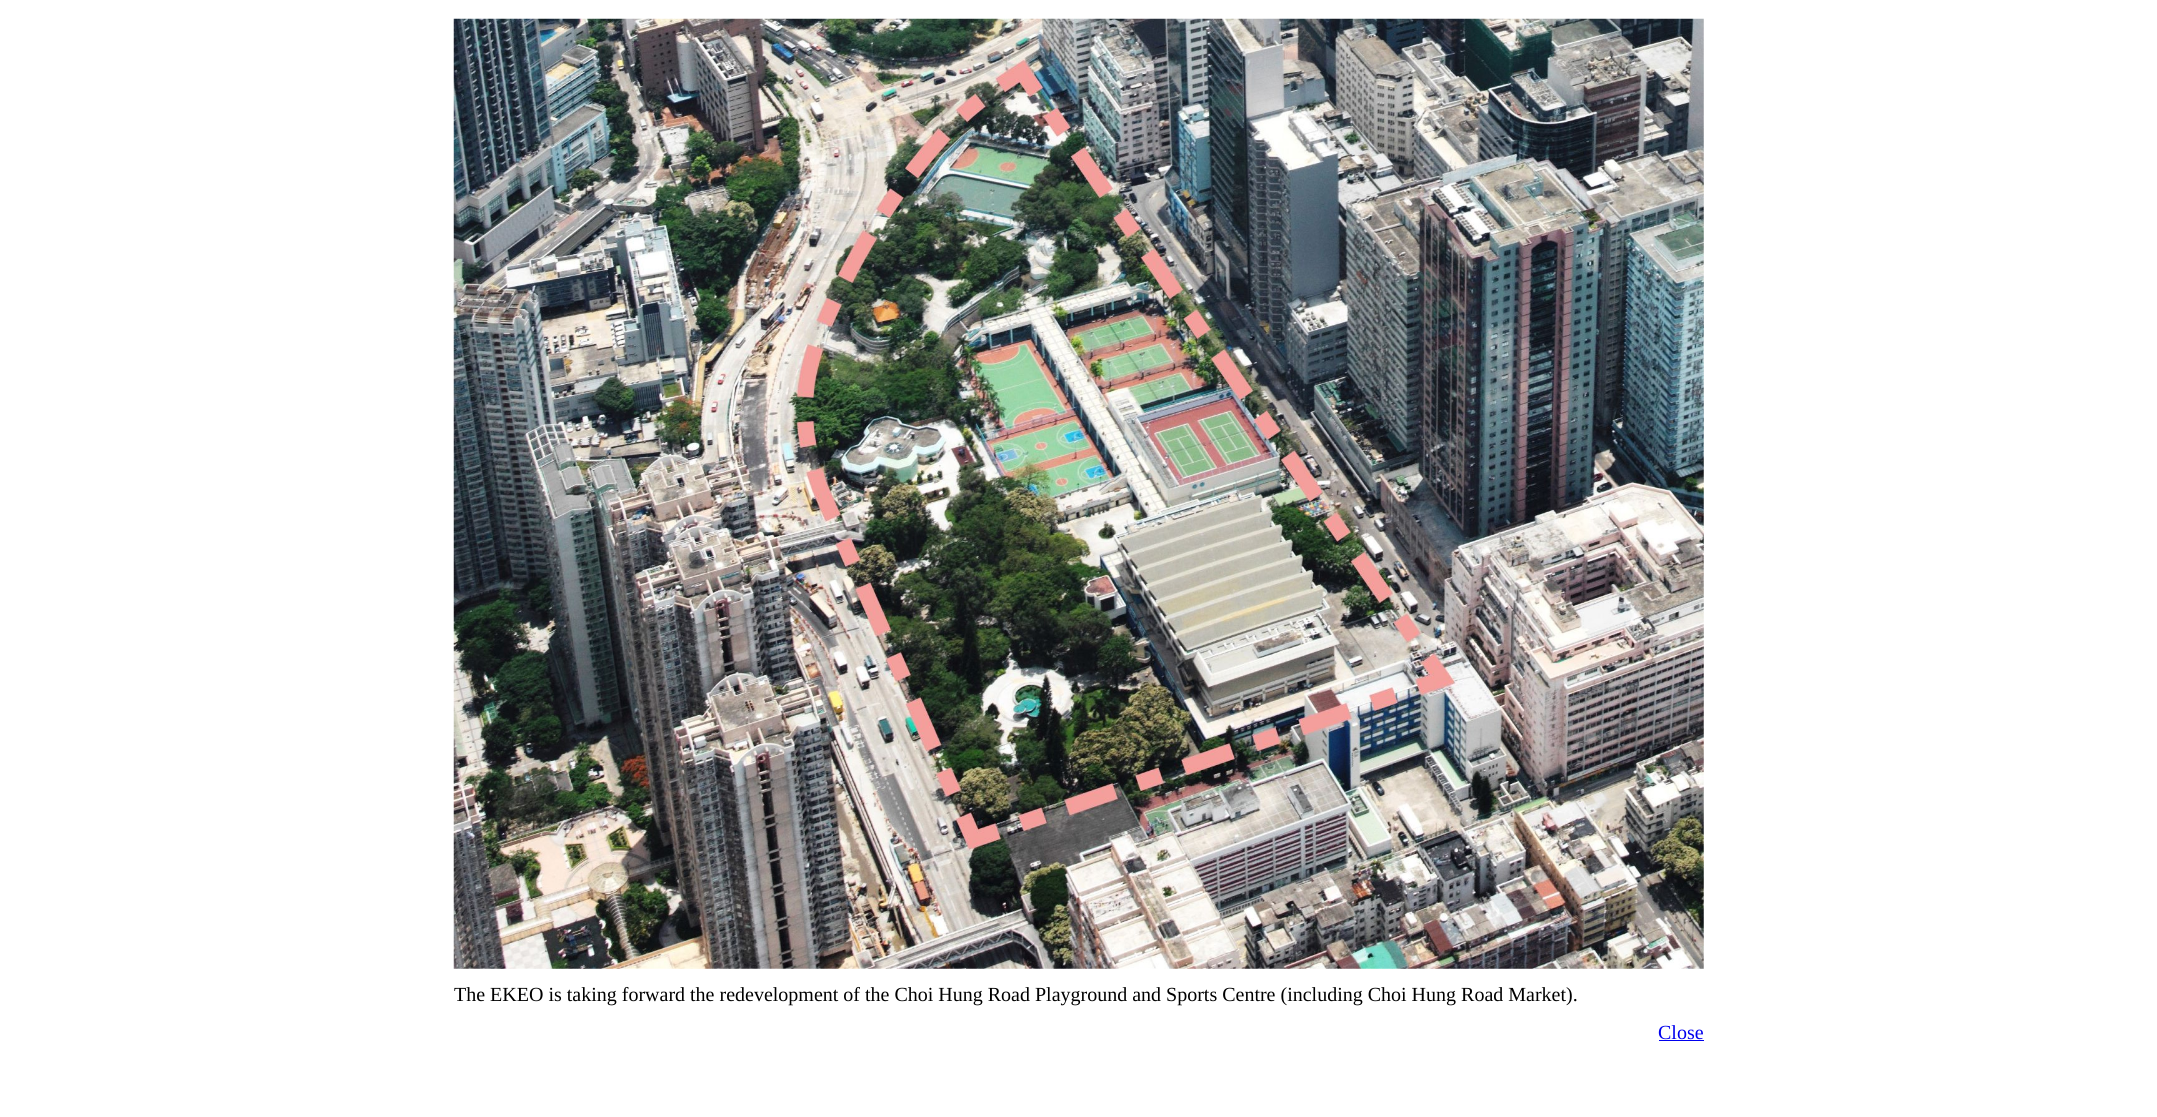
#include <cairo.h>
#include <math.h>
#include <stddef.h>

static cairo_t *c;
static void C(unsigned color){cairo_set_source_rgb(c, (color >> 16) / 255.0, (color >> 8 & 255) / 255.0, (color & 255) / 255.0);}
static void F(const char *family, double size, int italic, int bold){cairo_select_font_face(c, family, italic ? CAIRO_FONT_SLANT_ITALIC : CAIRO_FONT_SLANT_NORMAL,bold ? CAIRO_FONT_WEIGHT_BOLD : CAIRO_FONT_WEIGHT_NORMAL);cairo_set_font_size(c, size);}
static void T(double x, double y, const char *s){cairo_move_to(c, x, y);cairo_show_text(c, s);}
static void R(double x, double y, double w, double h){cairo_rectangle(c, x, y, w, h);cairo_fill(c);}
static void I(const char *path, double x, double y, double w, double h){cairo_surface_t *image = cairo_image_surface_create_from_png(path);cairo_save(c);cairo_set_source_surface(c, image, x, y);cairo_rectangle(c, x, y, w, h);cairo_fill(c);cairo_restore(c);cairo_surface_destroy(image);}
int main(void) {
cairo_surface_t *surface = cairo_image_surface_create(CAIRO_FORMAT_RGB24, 2157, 1117);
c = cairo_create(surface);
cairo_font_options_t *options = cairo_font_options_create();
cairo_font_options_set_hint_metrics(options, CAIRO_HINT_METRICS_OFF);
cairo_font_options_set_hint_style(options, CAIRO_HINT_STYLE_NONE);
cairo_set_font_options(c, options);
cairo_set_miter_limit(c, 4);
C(0xffffff);
cairo_paint(c);
I("1.png",453,18,1251,951);
F("Liberation Serif",20,0,0);
C(0x000000);
T(454,1001,"The EKEO is taking forward the redevelopment of the Choi Hung Road Playground and Sports Centre (including Choi Hung Road Market).");
C(0x0000ee);
T(1658,1039,"Close");
R(1659,1040,45,1);
cairo_surface_write_to_png(surface, "o.png");
cairo_font_options_destroy(options);
cairo_destroy(c);
cairo_surface_destroy(surface);
return 0;
}
